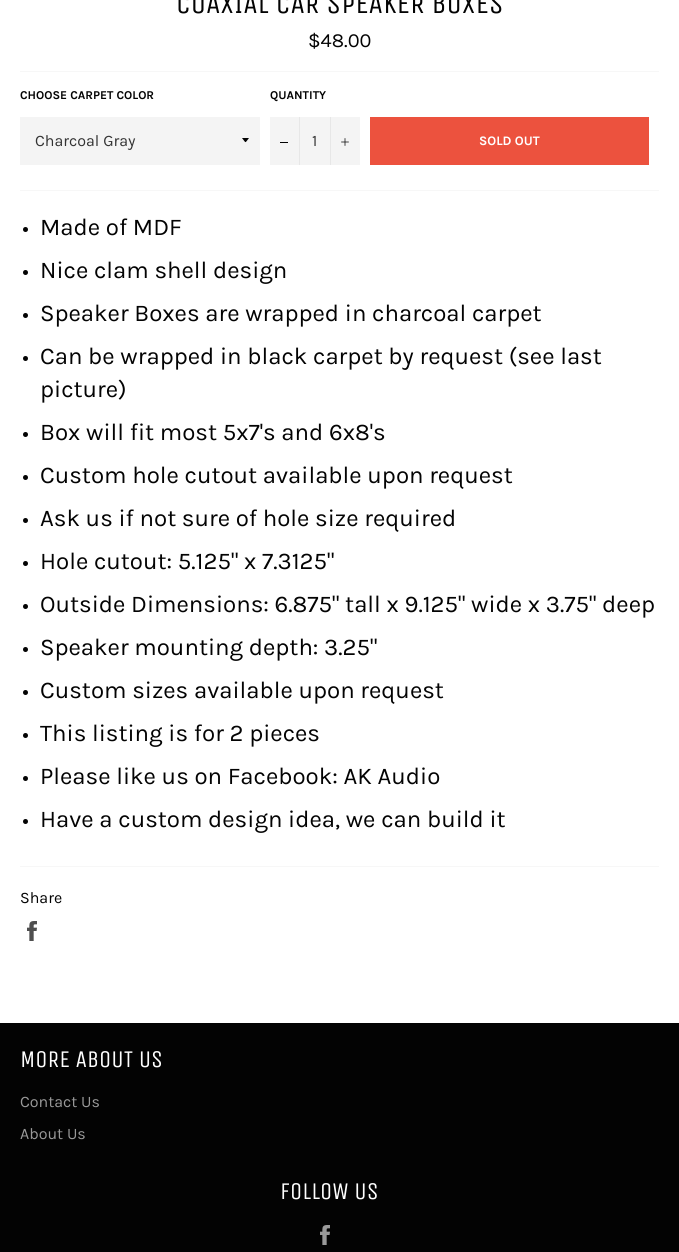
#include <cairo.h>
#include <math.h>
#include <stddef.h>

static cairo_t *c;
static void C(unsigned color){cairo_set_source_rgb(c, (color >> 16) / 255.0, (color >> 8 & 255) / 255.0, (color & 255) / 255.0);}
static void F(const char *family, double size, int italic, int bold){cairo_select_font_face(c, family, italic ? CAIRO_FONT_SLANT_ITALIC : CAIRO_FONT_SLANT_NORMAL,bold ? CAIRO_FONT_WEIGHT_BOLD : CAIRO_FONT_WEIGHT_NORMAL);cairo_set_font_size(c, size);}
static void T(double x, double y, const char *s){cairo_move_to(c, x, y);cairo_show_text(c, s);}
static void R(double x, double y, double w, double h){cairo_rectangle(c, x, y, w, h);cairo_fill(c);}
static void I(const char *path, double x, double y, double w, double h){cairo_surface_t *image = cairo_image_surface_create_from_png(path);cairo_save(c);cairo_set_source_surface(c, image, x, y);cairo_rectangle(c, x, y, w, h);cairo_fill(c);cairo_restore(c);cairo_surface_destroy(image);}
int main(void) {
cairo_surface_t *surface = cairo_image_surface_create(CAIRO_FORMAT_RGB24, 679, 1252);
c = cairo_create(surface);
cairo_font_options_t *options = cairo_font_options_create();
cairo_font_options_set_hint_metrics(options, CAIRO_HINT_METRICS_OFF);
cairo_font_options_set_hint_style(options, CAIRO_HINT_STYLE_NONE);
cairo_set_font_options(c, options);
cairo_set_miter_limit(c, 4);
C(0xffffff);
cairo_paint(c);
F("Unica One",30,0,0);
C(0x030303);
T(176,13,"COAXIAL CAR SPEAKER BOXES");
F("Karla",20,0,0);
T(308,47,"$48.00");
C(0xf7f7f7);
R(20,71,639,1);
F("Karla",12,0,1);
C(0x030303);
T(20,99,"CHOOSE CARPET COLOR");
C(0xf4f4f4);
R(20,117,240,48);
C(0x030303);
cairo_new_path(c);
cairo_move_to(c,242,138);
cairo_curve_to(c,246.5,143.5,244.5,143.5,249,138);
cairo_close_path(c);
cairo_fill(c);
F("Karla",16,0,0);
C(0x333333);
T(35,146,"Charcoal Gray");
F("Karla",12,0,1);
C(0x030303);
T(270,99,"QUANTITY");
C(0xf4f4f4);
R(270,117,90,48);
C(0xe7e7e7);
R(299,117,1,48);
C(0x030303);
R(280,142,8,1);
F("Karla",16,0,0);
C(0x333333);
T(312,146,"1");
C(0xe7e7e7);
R(330,117,1,48);
I("1.png",341,138,8,8);
C(0xec523e);
R(370,117,279,48);
F("Karla",13,0,1);
C(0xffffff);
T(479,145,"SOLD OUT");
C(0xf7f7f7);
R(20,190,639,1);
C(0x030303);
cairo_new_path(c);
cairo_arc(c,25.5,229.5,2.5,0,2 * M_PI);
cairo_fill(c);
F("Karla",24,0,0);
T(40,235,"Made of MDF");
cairo_new_path(c);
cairo_arc(c,25.5,272.5,2.5,0,2 * M_PI);
cairo_fill(c);
T(40,278,"Nice clam shell design");
cairo_new_path(c);
cairo_arc(c,25.5,315.5,2.5,0,2 * M_PI);
cairo_fill(c);
T(40,321,"Speaker Boxes are wrapped in charcoal carpet");
cairo_new_path(c);
cairo_arc(c,25.5,358.5,2.5,0,2 * M_PI);
cairo_fill(c);
T(40,364,"Can be wrapped in black carpet by request (see last");
T(40,397,"picture)");
cairo_new_path(c);
cairo_arc(c,25.5,434.5,2.5,0,2 * M_PI);
cairo_fill(c);
T(40,440,"Box will fit most 5x7's and 6x8's");
cairo_new_path(c);
cairo_arc(c,25.5,477.5,2.5,0,2 * M_PI);
cairo_fill(c);
T(40,483,"Custom hole cutout available upon request");
cairo_new_path(c);
cairo_arc(c,25.5,520.5,2.5,0,2 * M_PI);
cairo_fill(c);
T(40,526,"Ask us if not sure of hole size required");
cairo_new_path(c);
cairo_arc(c,25.5,563.5,2.5,0,2 * M_PI);
cairo_fill(c);
T(40,569,"Hole cutout: 5.125\" x 7.3125\"");
cairo_new_path(c);
cairo_arc(c,25.5,606.5,2.5,0,2 * M_PI);
cairo_fill(c);
T(40,612,"Outside Dimensions: 6.875\" tall x 9.125\" wide x 3.75\" deep");
cairo_new_path(c);
cairo_arc(c,25.5,649.5,2.5,0,2 * M_PI);
cairo_fill(c);
T(40,655,"Speaker mounting depth: 3.25\"");
cairo_new_path(c);
cairo_arc(c,25.5,692.5,2.5,0,2 * M_PI);
cairo_fill(c);
T(40,698,"Custom sizes available upon request");
cairo_new_path(c);
cairo_arc(c,25.5,735.5,2.5,0,2 * M_PI);
cairo_fill(c);
T(40,741,"This listing is for 2 pieces");
cairo_new_path(c);
cairo_arc(c,25.5,778.5,2.5,0,2 * M_PI);
cairo_fill(c);
T(40,784,"Please like us on Facebook: AK Audio");
cairo_new_path(c);
cairo_arc(c,25.5,821.5,2.5,0,2 * M_PI);
cairo_fill(c);
T(40,827,"Have a custom design idea, we can build it");
C(0xf7f7f7);
R(20,866,639,1);
F("Karla",16,0,0);
C(0x030303);
T(20,903,"Share");
I("2.png",27,921,10,20);
R(0,1023,679,229);
F("Unica One",24,0,0);
C(0xffffff);
T(20,1067,"MORE ABOUT US");
F("Karla",16,0,0);
C(0x9a9a9a);
T(20,1107,"Contact Us");
T(20,1139,"About Us");
F("Unica One",24,0,0);
C(0xffffff);
T(280,1199,"FOLLOW US");
I("3.png",320,1225,10,20);
cairo_surface_write_to_png(surface, "o.png");
cairo_font_options_destroy(options);
cairo_destroy(c);
cairo_surface_destroy(surface);
return 0;
}
